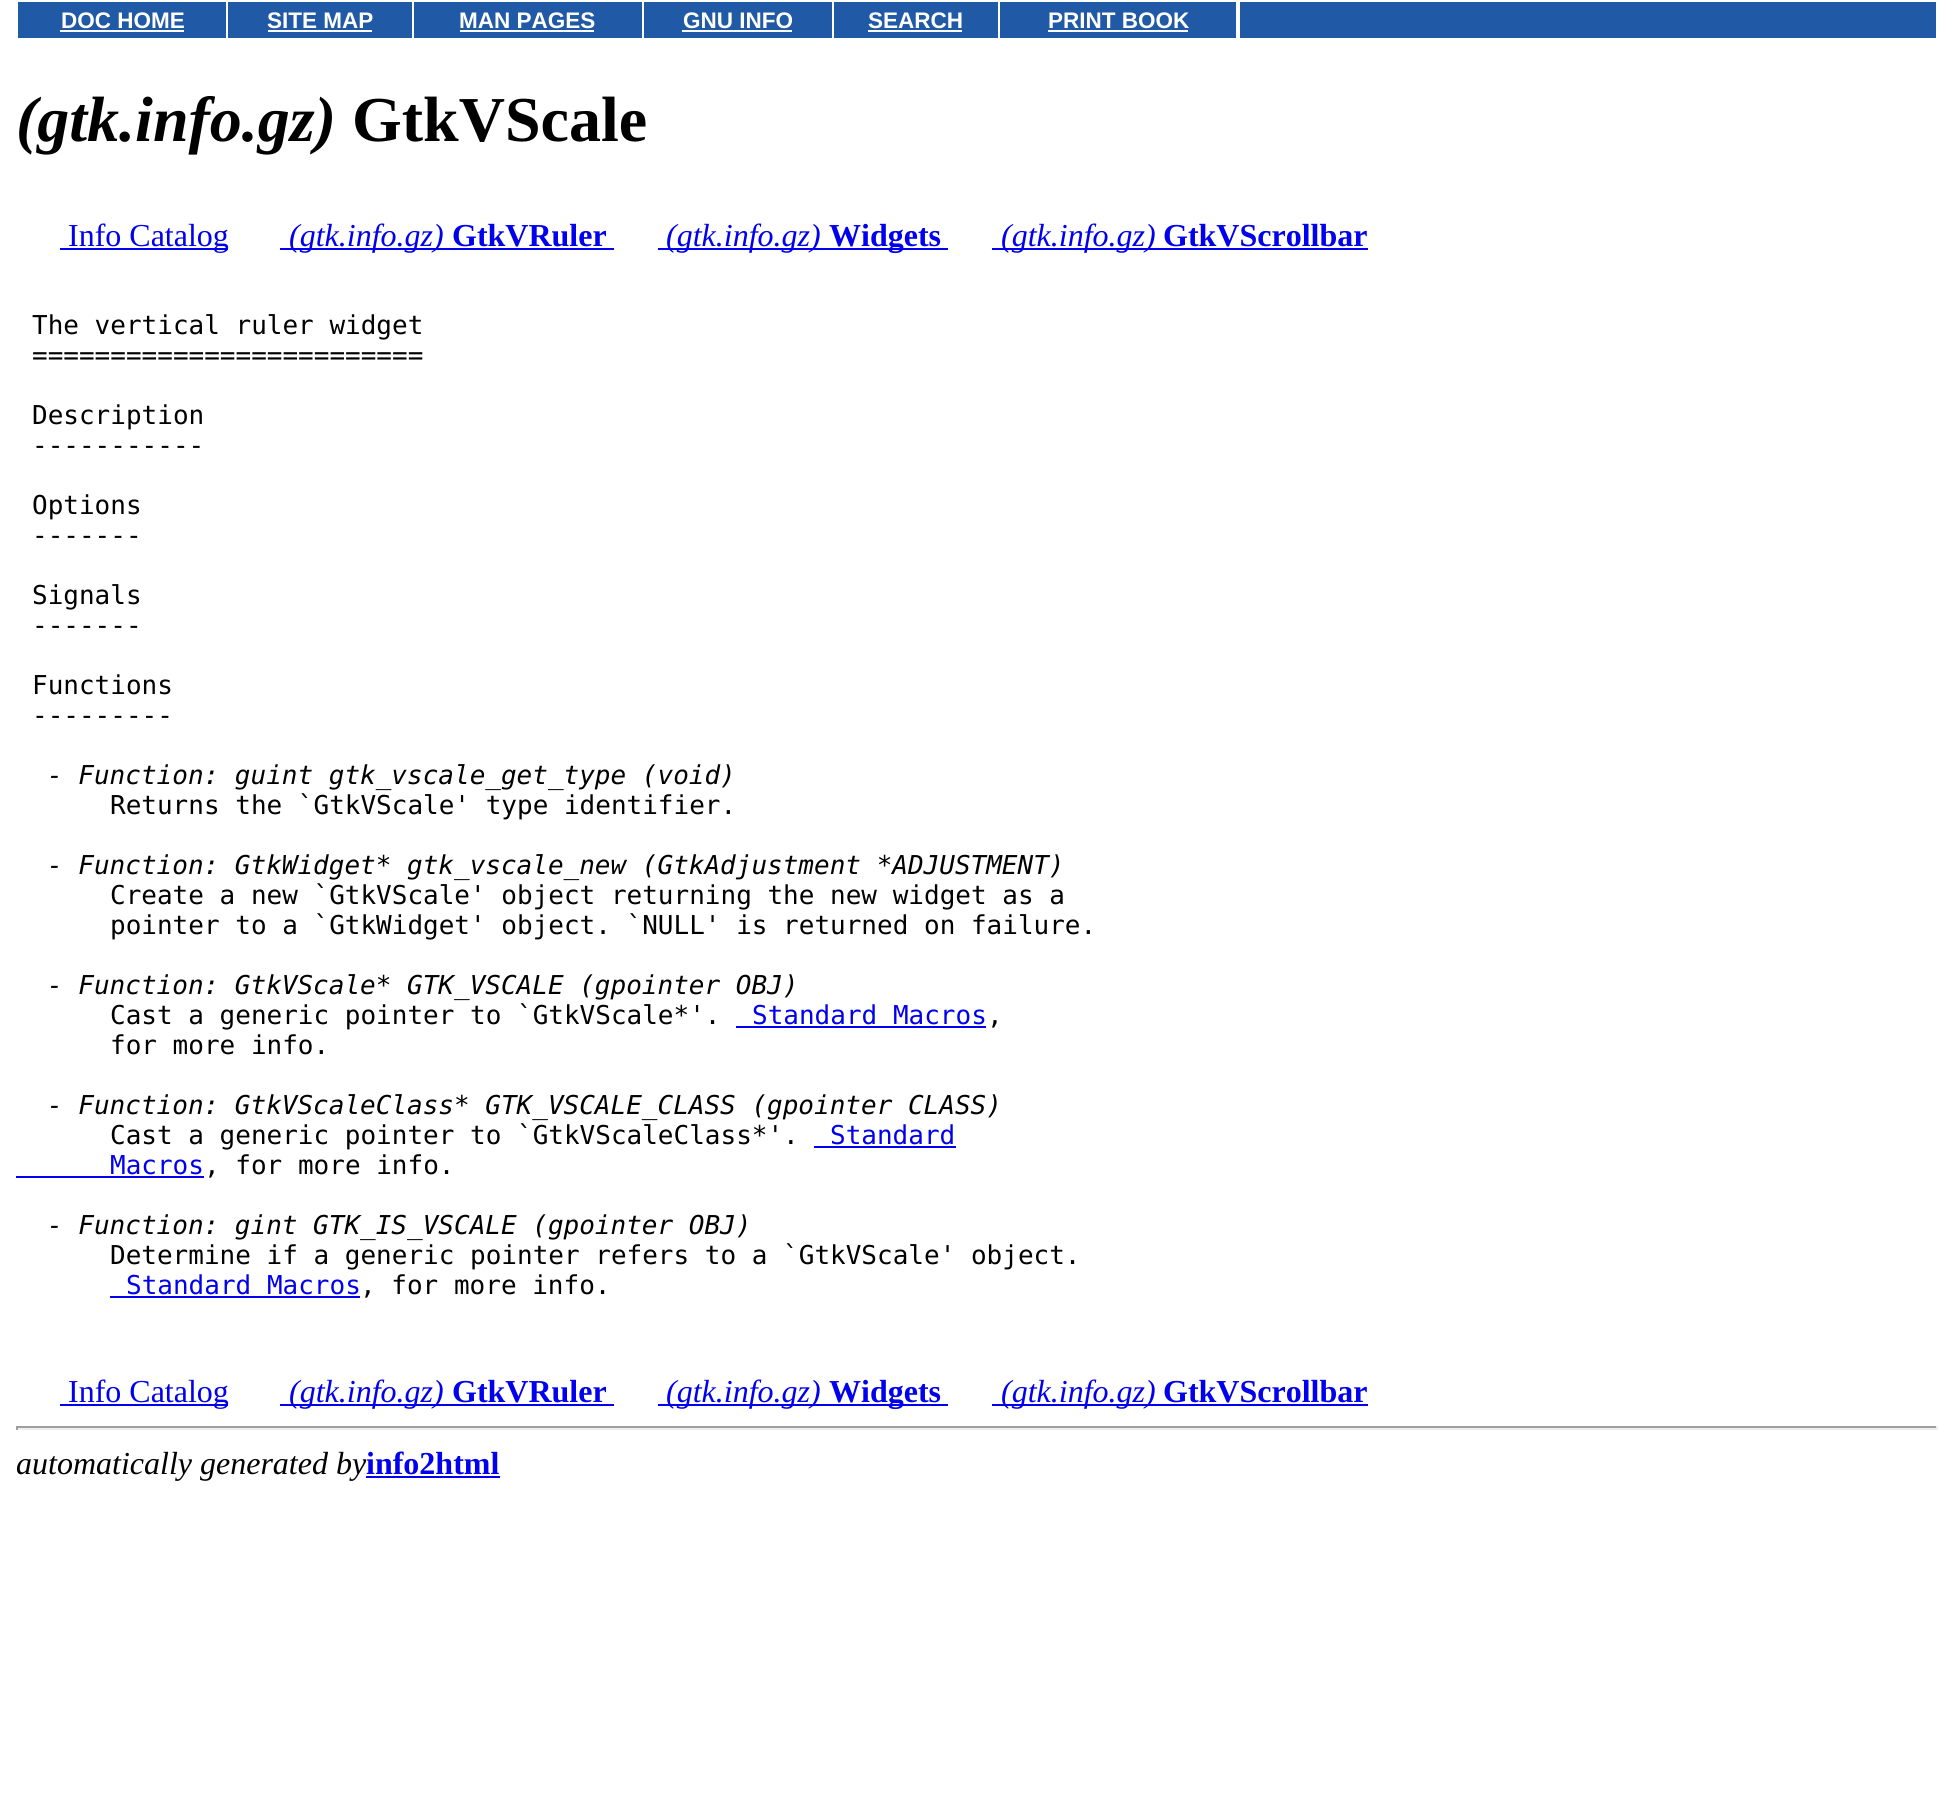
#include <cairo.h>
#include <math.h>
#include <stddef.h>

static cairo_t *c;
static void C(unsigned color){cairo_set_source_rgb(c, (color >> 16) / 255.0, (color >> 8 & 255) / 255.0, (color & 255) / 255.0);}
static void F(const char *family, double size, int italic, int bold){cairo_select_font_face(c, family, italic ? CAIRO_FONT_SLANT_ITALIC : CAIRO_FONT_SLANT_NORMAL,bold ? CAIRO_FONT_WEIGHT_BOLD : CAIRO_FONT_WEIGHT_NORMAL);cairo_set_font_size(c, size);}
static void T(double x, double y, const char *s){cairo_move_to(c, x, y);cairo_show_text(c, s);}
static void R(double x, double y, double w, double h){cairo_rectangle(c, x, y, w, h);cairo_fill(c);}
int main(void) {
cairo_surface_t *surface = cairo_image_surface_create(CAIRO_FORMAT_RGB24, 1954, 1815);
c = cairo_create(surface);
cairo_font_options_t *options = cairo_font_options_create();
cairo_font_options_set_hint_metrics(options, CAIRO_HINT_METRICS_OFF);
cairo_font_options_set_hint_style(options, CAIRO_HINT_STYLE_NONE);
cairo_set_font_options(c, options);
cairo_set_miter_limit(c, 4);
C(0xffffff);
cairo_paint(c);
C(0x2059a6);
R(18,2,208,36);
F("Liberation Sans",22.5,0,1);
C(0xffffff);
T(61,28,"DOC HOME");
R(60,30,124,2);
C(0x2059a6);
R(228,2,184,36);
C(0xffffff);
T(267,28,"SITE MAP");
R(268,30,104,2);
C(0x2059a6);
R(414,2,228,36);
C(0xffffff);
T(459,28,"MAN PAGES");
R(460,30,134,2);
C(0x2059a6);
R(644,2,188,36);
C(0xffffff);
T(683,28,"GNU INFO");
R(682,30,110,2);
C(0x2059a6);
R(834,2,164,36);
C(0xffffff);
T(868,28,"SEARCH");
R(868,30,94,2);
C(0x2059a6);
R(1000,2,236,36);
C(0xffffff);
T(1048,28,"PRINT BOOK");
R(1048,30,140,2);
C(0x2059a6);
R(1240,2,696,36);
F("Liberation Serif",64,1,1);
C(0x000000);
T(16,141,"(gtk.info.gz)");
F("Liberation Serif",64,0,1);
T(352,141,"GtkVScale");
C(0x0000ee);
R(60,248,168,2);
F("Liberation Serif",32,0,0);
T(68,246,"Info Catalog");
R(280,248,334,2);
F("Liberation Serif",32,1,0);
T(289,246,"(gtk.info.gz)");
F("Liberation Serif",32,0,1);
T(452,246,"GtkVRuler");
R(658,248,282,2);
F("Liberation Serif",32,1,0);
T(666,246,"(gtk.info.gz)");
F("Liberation Serif",32,0,1);
T(829,246,"Widgets");
R(940,248,8,2);
R(992,248,376,2);
F("Liberation Serif",32,1,0);
T(1001,246,"(gtk.info.gz)");
F("Liberation Serif",32,0,1);
T(1163,246,"GtkVScrollbar");
F("DejaVu Sans Mono",26,0,0);
C(0x000000);
T(32,334,"The vertical ruler widget");
T(32,364,"=========================");
T(32,424,"Description");
T(32,454,"-----------");
T(32,514,"Options");
T(32,544,"-------");
T(32,604,"Signals");
T(32,634,"-------");
T(32,694,"Functions");
T(32,724,"---------");
F("DejaVu Sans Mono",26,1,0);
T(47,784,"- Function: guint gtk_vscale_get_type (void)");
F("DejaVu Sans Mono",26,0,0);
T(110,814,"Returns the `GtkVScale' type identifier.");
F("DejaVu Sans Mono",26,1,0);
T(47,874,"- Function: GtkWidget* gtk_vscale_new (GtkAdjustment *ADJUSTMENT)");
F("DejaVu Sans Mono",26,0,0);
T(110,904,"Create a new `GtkVScale' object returning the new widget as a");
T(110,934,"pointer to a `GtkWidget' object. `NULL' is returned on failure.");
F("DejaVu Sans Mono",26,1,0);
T(47,994,"- Function: GtkVScale* GTK_VSCALE (gpointer OBJ)");
F("DejaVu Sans Mono",26,0,0);
T(110,1024,"Cast a generic pointer to `GtkVScale*'.");
C(0x0000ee);
T(752,1024,"Standard Macros");
R(736,1026,250,2);
C(0x000000);
T(987,1024,",");
T(110,1054,"for more info.");
F("DejaVu Sans Mono",26,1,0);
T(47,1114,"- Function: GtkVScaleClass* GTK_VSCALE_CLASS (gpointer CLASS)");
F("DejaVu Sans Mono",26,0,0);
T(110,1144,"Cast a generic pointer to `GtkVScaleClass*'.");
C(0x0000ee);
T(830,1144,"Standard");
R(814,1146,142,2);
T(110,1174,"Macros");
R(16,1176,188,2);
C(0x000000);
T(204,1174,", for more info.");
F("DejaVu Sans Mono",26,1,0);
T(47,1234,"- Function: gint GTK_IS_VSCALE (gpointer OBJ)");
F("DejaVu Sans Mono",26,0,0);
T(110,1264,"Determine if a generic pointer refers to a `GtkVScale' object.");
C(0x0000ee);
T(126,1294,"Standard Macros");
R(110,1296,250,2);
C(0x000000);
T(360,1294,", for more info.");
C(0x0000ee);
R(60,1404,168,2);
F("Liberation Serif",32,0,0);
T(68,1402,"Info Catalog");
R(280,1404,334,2);
F("Liberation Serif",32,1,0);
T(289,1402,"(gtk.info.gz)");
F("Liberation Serif",32,0,1);
T(452,1402,"GtkVRuler");
R(658,1404,282,2);
F("Liberation Serif",32,1,0);
T(666,1402,"(gtk.info.gz)");
F("Liberation Serif",32,0,1);
T(829,1402,"Widgets");
R(940,1404,8,2);
R(992,1404,376,2);
F("Liberation Serif",32,1,0);
T(1001,1402,"(gtk.info.gz)");
F("Liberation Serif",32,0,1);
T(1163,1402,"GtkVScrollbar");
C(0x9f9f9f);
R(16,1426,1922,2);
C(0xeeeeee);
R(1936,1426,2,4);
R(16,1428,1922,2);
C(0x9f9f9f);
R(16,1426,2,4);
F("Liberation Serif",32,1,0);
C(0x000000);
T(16,1474,"automatically generated by");
F("Liberation Serif",32,0,1);
C(0x0000ee);
T(366,1474,"info2html");
R(366,1476,134,2);
cairo_surface_write_to_png(surface, "o.png");
cairo_font_options_destroy(options);
cairo_destroy(c);
cairo_surface_destroy(surface);
return 0;
}
